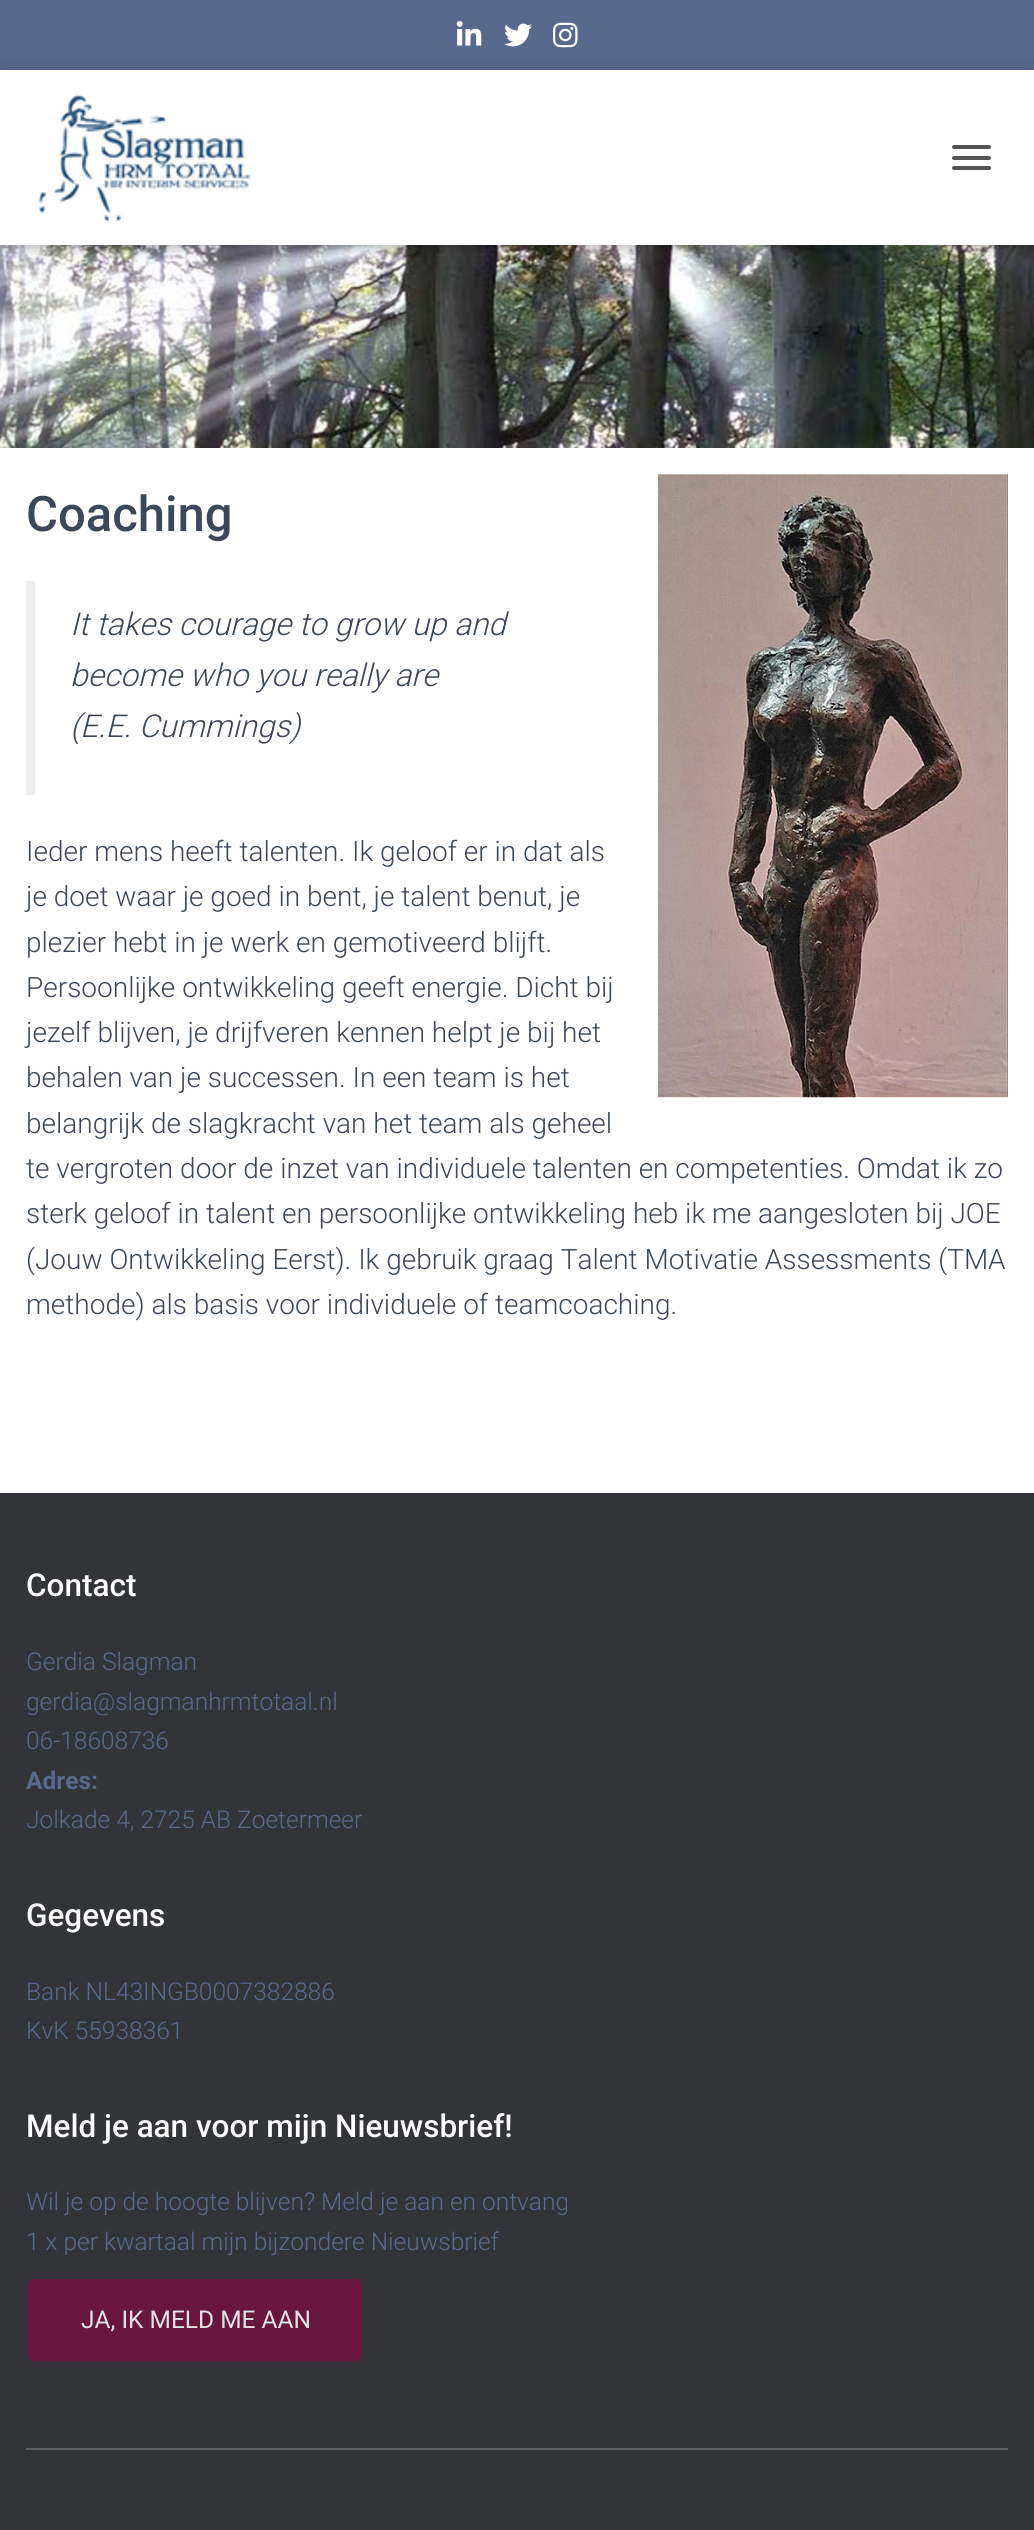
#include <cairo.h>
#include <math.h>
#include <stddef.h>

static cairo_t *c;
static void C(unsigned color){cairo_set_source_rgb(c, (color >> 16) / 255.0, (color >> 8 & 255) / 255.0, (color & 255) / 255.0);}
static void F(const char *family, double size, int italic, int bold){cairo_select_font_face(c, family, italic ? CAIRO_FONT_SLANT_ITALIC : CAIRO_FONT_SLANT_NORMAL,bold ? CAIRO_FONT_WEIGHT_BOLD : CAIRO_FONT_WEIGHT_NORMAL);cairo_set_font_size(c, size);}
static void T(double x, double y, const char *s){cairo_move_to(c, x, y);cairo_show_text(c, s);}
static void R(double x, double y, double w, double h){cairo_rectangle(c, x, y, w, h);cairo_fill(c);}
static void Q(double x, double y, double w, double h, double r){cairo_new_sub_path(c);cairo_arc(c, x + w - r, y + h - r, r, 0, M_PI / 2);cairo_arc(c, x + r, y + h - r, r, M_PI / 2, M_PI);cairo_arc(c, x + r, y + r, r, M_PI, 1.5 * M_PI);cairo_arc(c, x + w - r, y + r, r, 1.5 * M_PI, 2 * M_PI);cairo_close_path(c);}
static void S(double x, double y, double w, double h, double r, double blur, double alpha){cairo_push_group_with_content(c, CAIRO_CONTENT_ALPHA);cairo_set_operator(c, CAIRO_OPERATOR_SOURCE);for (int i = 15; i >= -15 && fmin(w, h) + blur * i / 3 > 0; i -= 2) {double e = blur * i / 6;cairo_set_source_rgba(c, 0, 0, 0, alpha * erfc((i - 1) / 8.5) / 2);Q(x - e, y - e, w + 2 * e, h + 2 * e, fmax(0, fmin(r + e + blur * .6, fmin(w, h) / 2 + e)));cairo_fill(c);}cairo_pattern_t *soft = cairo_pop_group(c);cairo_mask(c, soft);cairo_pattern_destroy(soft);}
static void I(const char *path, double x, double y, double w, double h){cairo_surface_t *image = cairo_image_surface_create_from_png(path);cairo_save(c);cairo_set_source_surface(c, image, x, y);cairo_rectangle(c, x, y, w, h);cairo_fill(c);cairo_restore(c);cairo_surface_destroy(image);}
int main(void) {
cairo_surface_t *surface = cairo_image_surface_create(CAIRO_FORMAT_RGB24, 1034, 2530);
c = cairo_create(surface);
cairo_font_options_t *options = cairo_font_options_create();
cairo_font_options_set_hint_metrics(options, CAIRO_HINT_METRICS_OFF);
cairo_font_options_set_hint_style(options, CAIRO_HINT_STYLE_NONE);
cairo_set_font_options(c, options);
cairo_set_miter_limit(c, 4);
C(0xffffff);
cairo_paint(c);
C(0x58698e);
R(0,0,1034,70);
I("1.png",456,21,26,25);
I("2.png",504,23,28,24);
I("3.png",553,22,25,26);
I("5.png",0,245,1034,203);
C(0x000000);
S(4,81,1027,168,0,4.5,.1);
S(0,72,1034,175,0,9,.12);
S(11,82,1013,154,0,9,.42);
C(0xffffff);
R(0,70,1034,175);
I("4.png",38,94,213,128);
C(0x555555);
Q(952,145,39,4,2);
cairo_fill(c);
Q(952,156,39,4,2);
cairo_fill(c);
Q(952,166,39,4,2);
cairo_fill(c);
F("Roboto Medium",49,0,0);
C(0x3c4858);
T(26,531,"Coaching");
I("6.png",658,474,350,624);
C(0xeeeeee);
R(26,581,9,214);
F("Roboto Light",31.5,1,0);
C(0x3c4858);
T(70,635,"It takes courage to grow up and");
T(70,686,"become who you really are");
T(70,737,"(E.E. Cummings)");
F("Roboto Light",28,0,0);
T(26,861,"Ieder mens heeft talenten. Ik geloof er in dat als");
T(26,906,"je doet waar je goed in bent, je talent benut, je");
T(26,952,"plezier hebt in je werk en gemotiveerd blijft.");
T(26,997,"Persoonlijke ontwikkeling geeft energie. Dicht bij");
T(26,1042,"jezelf blijven, je drijfveren kennen helpt je bij het");
T(26,1087,"behalen van je successen. In een team is het");
T(26,1133,"belangrijk de slagkracht van het team als geheel");
T(26,1178,"te vergroten door de inzet van individuele talenten en competenties. Omdat ik zo");
T(26,1223,"sterk geloof in talent en persoonlijke ontwikkeling heb ik me aangesloten bij JOE");
T(26,1269,"(Jouw Ontwikkeling Eerst). Ik gebruik graag Talent Motivatie Assessments (TMA");
T(26,1314,"methode) als basis voor individuele of teamcoaching.");
C(0x323437);
R(0,1493,1034,1037);
F("Roboto Medium",31.5,0,0);
C(0xffffff);
T(26,1596,"Contact");
F("Roboto Light",24.5,0,0);
C(0x58698e);
T(26,1670,"Gerdia Slagman");
T(26,1710,"gerdia@slagmanhrmtotaal.nl");
T(26,1749,"06-18608736");
F("Roboto",24.5,0,1);
T(26,1789,"Adres:");
F("Roboto Light",24.5,0,0);
T(26,1828,"Jolkade 4, 2725 AB Zoetermeer");
F("Roboto Medium",31.5,0,0);
C(0xffffff);
T(26,1926,"Gegevens");
F("Roboto Light",24.5,0,0);
C(0x58698e);
T(26,2000,"Bank NL43INGB0007382886");
T(26,2039,"KvK 55938361");
F("Roboto Medium",31.5,0,0);
C(0xffffff);
T(26,2137,"Meld je aan voor mijn Nieuwsbrief!");
F("Roboto Light",24.5,0,0);
C(0x58698e);
T(26,2210,"Wil je op de hoogte blijven? Meld je aan en ontvang");
T(26,2250,"1 x per kwartaal mijn bijzondere Nieuwsbrief");
C(0x69163d);
S(32,2287,327,76,2,1,.2);
C(0x69163d);
Q(28,2279,334,82,5);
cairo_fill(c);
F("Roboto",24.5,0,0);
C(0xe2e3e3);
T(81,2328,"JA, IK MELD ME AAN");
C(0x5b5d5f);
R(26,2448,982,2);
cairo_surface_write_to_png(surface, "o.png");
cairo_font_options_destroy(options);
cairo_destroy(c);
cairo_surface_destroy(surface);
return 0;
}
